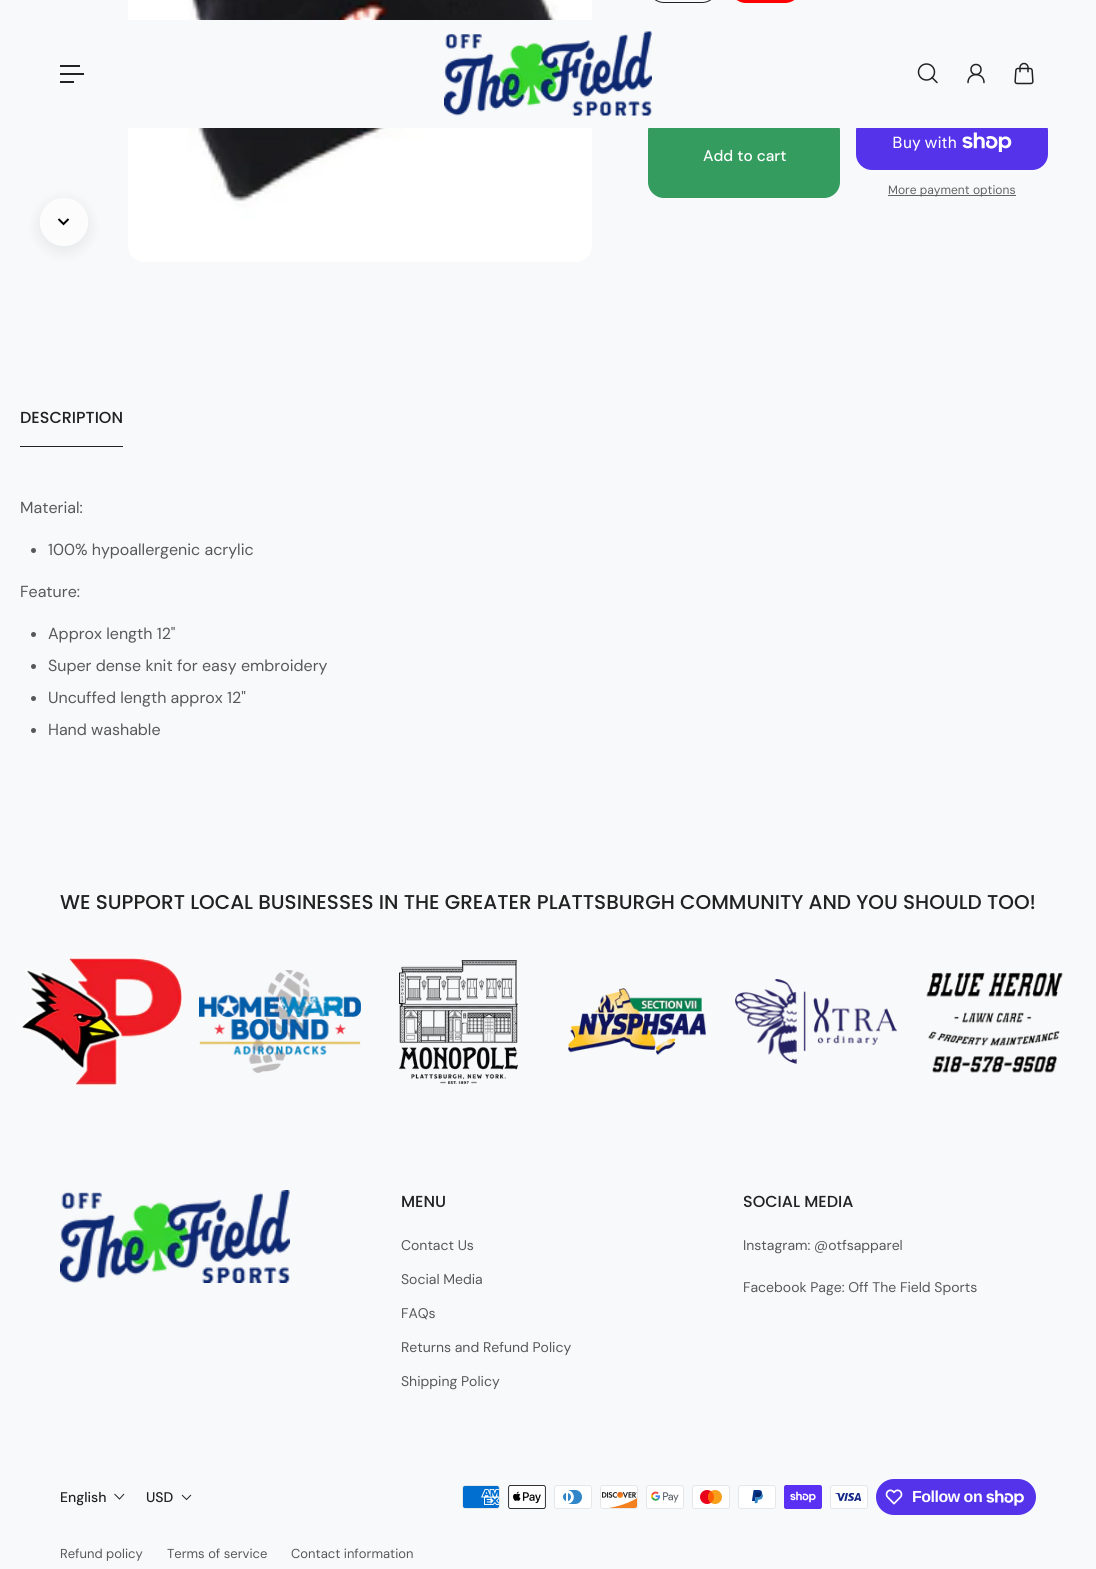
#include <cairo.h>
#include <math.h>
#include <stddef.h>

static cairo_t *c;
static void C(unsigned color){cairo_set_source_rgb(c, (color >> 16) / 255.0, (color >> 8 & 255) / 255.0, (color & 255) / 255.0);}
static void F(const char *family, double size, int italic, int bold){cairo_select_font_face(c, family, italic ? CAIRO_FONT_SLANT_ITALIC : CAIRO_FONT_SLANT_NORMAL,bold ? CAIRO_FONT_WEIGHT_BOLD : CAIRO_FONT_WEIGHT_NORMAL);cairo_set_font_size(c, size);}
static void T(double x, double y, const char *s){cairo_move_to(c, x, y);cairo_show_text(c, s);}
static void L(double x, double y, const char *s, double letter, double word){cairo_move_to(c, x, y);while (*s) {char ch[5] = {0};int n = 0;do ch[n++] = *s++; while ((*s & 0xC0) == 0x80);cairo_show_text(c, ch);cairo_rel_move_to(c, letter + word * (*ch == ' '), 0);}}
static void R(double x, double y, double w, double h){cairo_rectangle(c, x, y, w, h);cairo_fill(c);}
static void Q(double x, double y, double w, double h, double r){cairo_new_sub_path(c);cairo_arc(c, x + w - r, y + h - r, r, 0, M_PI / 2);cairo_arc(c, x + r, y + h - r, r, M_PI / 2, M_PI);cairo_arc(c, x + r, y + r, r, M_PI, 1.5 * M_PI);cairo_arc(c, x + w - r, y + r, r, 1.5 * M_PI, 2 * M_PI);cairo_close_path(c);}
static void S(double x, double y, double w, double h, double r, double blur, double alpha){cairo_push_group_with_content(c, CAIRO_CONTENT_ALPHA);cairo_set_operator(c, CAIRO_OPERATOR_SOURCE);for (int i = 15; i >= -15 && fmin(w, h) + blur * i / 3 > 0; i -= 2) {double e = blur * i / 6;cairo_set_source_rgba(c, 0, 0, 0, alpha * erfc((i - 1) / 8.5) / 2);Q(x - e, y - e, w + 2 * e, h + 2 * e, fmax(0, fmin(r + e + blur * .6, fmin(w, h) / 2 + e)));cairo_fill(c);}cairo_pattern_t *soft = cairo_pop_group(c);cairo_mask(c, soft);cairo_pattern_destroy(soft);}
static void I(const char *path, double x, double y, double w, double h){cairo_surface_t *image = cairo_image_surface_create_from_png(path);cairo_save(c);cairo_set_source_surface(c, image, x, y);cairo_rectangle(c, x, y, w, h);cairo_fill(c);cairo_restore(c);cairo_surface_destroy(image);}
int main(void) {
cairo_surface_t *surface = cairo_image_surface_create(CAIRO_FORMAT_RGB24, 1096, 1569);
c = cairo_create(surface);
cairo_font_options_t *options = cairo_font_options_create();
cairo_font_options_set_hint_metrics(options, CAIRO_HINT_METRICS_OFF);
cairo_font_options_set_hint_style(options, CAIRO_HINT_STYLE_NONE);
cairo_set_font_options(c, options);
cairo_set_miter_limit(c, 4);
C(0xf8f9fa);
cairo_paint(c);
C(0xf5f5f5);
Q(128,-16,464,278,16);
cairo_fill(c);
I("3.png",128,0,464,262);
C(0x339c5e);
Q(648,115,192,83,16);
cairo_fill(c);
C(0x5433eb);
Q(856,115,192,55,16);
cairo_fill(c);
C(0xf8f9fa);
Q(20,20,1056,108,16);
cairo_fill(c);
C(0x222222);
R(60,65,20,2);
R(60,73,24,2);
R(60,81,14,2);
I("1.png",444,31,208,85);
cairo_arc(c,926.5,72,8,0,2 * M_PI);
cairo_set_line_width(c,1.5);
cairo_stroke(c);
cairo_new_path(c);
cairo_move_to(c,932,77.5);
cairo_line_to(c,937,82.5);
cairo_set_line_cap(c,CAIRO_LINE_CAP_ROUND);
cairo_set_line_join(c,CAIRO_LINE_JOIN_ROUND);
cairo_stroke(c);
cairo_arc(c,976,69.5,5,0,2 * M_PI);
cairo_set_line_cap(c,CAIRO_LINE_CAP_BUTT);
cairo_set_line_join(c,CAIRO_LINE_JOIN_MITER);
cairo_stroke(c);
cairo_new_path(c);
cairo_move_to(c,984,82.5);
cairo_curve_to(c,984,72,968,72,968,82.5);
cairo_set_line_cap(c,CAIRO_LINE_CAP_ROUND);
cairo_set_line_join(c,CAIRO_LINE_JOIN_ROUND);
cairo_stroke(c);
I("2.png",1014,62,20,23);
cairo_save(c);
cairo_set_fill_rule(c,CAIRO_FILL_RULE_EVEN_ODD);
cairo_new_path(c);
cairo_move_to(c,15,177);
cairo_line_to(c,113,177);
cairo_line_to(c,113,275);
cairo_line_to(c,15,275);
cairo_close_path(c);
cairo_move_to(c,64,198);
cairo_curve_to(c,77.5,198,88,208.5,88,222);
cairo_curve_to(c,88,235.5,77.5,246,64,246);
cairo_curve_to(c,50.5,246,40,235.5,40,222);
cairo_curve_to(c,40,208.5,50.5,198,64,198);
cairo_close_path(c);
cairo_clip(c);
C(0x000000);
S(40,202,48,48,24,8,.08);
cairo_restore(c);
cairo_set_source_rgba(c,1,1,1,0.5);
cairo_arc(c,64,222,24,0,2 * M_PI);
cairo_fill(c);
cairo_new_path(c);
cairo_move_to(c,68.5,219);
cairo_line_to(c,63.5,224);
cairo_line_to(c,58.5,219);
C(0x000000);
cairo_set_line_width(c,2);
cairo_set_line_cap(c,CAIRO_LINE_CAP_BUTT);
cairo_set_line_join(c,CAIRO_LINE_JOIN_MITER);
cairo_stroke(c);
Q(648.5,-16.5,69,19,15.5);
C(0x222222);
cairo_set_line_width(c,1);
cairo_stroke(c);
C(0xff0000);
Q(730,-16,71,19,16);
cairo_fill(c);
F("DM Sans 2 Medium",15.5,0,0);
C(0xffffff);
T(703,161,"Add to cart");
F("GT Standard",16,0,0);
T(892,148,"Buy with");
I("4.png",962,132,50,20);
C(0x626363);
R(888,195,128,1);
F("DM Sans",12,0,0);
C(0x626262);
T(888,194,"More payment options");
C(0x222222);
R(20,446,103,1);
F("Poppins Medium",16,0,0);
T(20,423,"DESCRIPTION");
F("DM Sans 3",16,0,0);
C(0x585858);
T(20,513,"Material:");
cairo_new_path(c);
cairo_arc(c,33.5,550.5,2.5,0,2 * M_PI);
cairo_fill(c);
T(48,555,"100% hypoallergenic acrylic");
T(20,597,"Feature:");
cairo_new_path(c);
cairo_arc(c,33.5,634.5,2.5,0,2 * M_PI);
cairo_fill(c);
T(48,639,"Approx length 12\"");
cairo_new_path(c);
cairo_arc(c,33.5,666.5,2.5,0,2 * M_PI);
cairo_fill(c);
T(48,671,"Super dense knit for easy embroidery");
cairo_new_path(c);
cairo_arc(c,33.5,698.5,2.5,0,2 * M_PI);
cairo_fill(c);
T(48,703,"Uncuffed length approx 12\"");
cairo_new_path(c);
cairo_arc(c,33.5,730.5,2.5,0,2 * M_PI);
cairo_fill(c);
T(48,735,"Hand washable");
F("Poppins Medium",20,0,0);
C(0x222222);
T(60,909,"WE SUPPORT LOCAL BUSINESSES IN THE GREATER PLATTSBURGH COMMUNITY AND YOU SHOULD TOO!");
I("5.png",20,957,163,129);
I("6.png",199,970,162,103);
I("7.png",399,960,119,124);
I("8.png",568,988,138,67);
I("9.png",735,979,162,85);
I("10.png",926,972,137,101);
I("11.png",60,1190,230,93);
F("Poppins Medium",16,0,0);
T(401,1207,"MENU");
F("DM Sans 2",14,0,0);
C(0x585858);
T(401,1250,"Contact Us");
T(401,1284,"Social Media");
T(401,1318,"FAQs");
T(401,1352,"Returns and Refund Policy");
T(401,1386,"Shipping Policy");
F("Poppins Medium",16,0,0);
C(0x222222);
T(743,1207,"SOCIAL MEDIA");
F("DM Sans 2",14,0,0);
C(0x585858);
T(743,1250,"Instagram: @otfsapparel");
T(743,1292,"Facebook Page: Off The Field Sports");
F("DM Sans Medium",14,0,0);
C(0x222222);
T(60,1502,"English");
cairo_new_path(c);
cairo_move_to(c,124,1494);
cairo_line_to(c,119.5,1499);
cairo_line_to(c,114.5,1494);
cairo_stroke(c);
T(146,1502,"USD");
cairo_new_path(c);
cairo_move_to(c,191,1495);
cairo_line_to(c,186.5,1499.5);
cairo_line_to(c,182,1495);
cairo_stroke(c);
I("12.png",462,1485,38,24);
I("13.png",508,1485,38,24);
I("14.png",554,1485,38,24);
I("15.png",600,1485,38,24);
I("16.png",646,1485,38,24);
I("17.png",692,1485,38,24);
I("18.png",738,1485,38,24);
I("19.png",784,1485,38,24);
I("20.png",830,1485,38,24);
C(0x5433eb);
Q(876,1479,160,36,18);
cairo_fill(c);
I("21.png",885,1489,18,16);
F("Liberation Sans",16,0,1);
C(0xffffff);
L(912,1502,"Follow on",-.5,0);
I("22.png",986,1490,38,16);
F("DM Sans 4",13,0,0);
C(0x585858);
T(60,1558,"Refund policy");
T(167,1558,"Terms of service");
T(291,1558,"Contact information");
cairo_surface_write_to_png(surface, "o.png");
cairo_font_options_destroy(options);
cairo_destroy(c);
cairo_surface_destroy(surface);
return 0;
}
